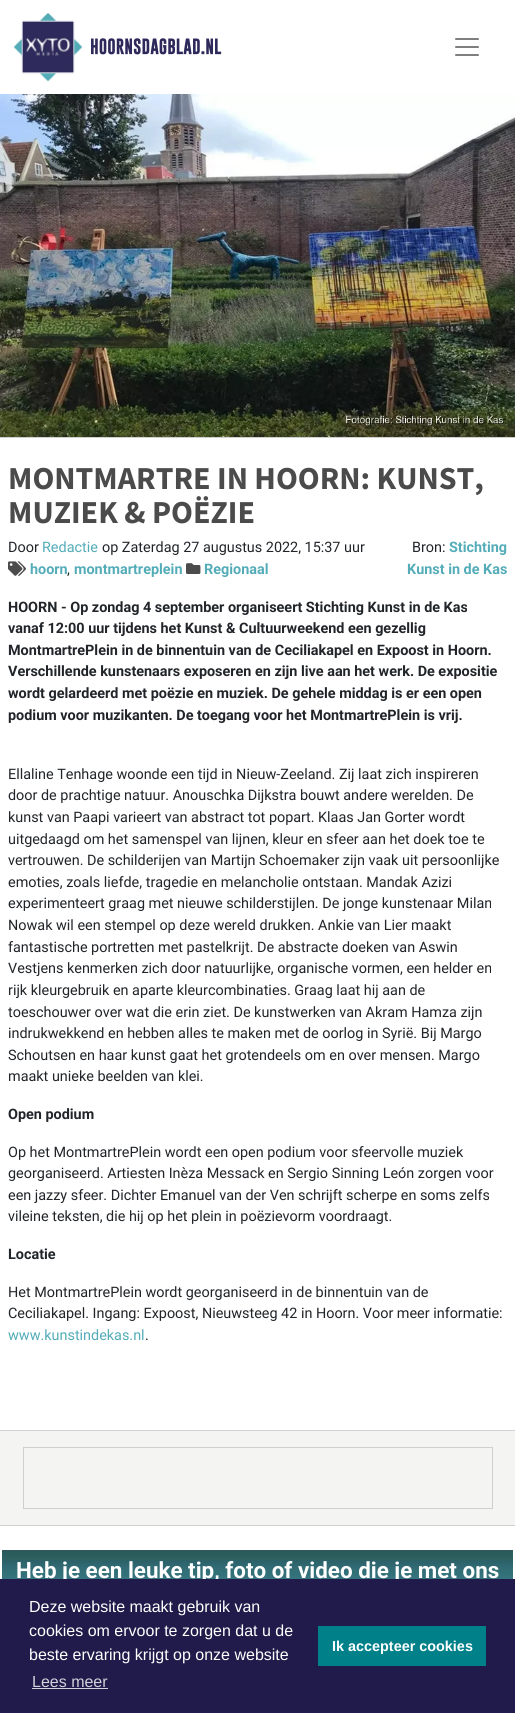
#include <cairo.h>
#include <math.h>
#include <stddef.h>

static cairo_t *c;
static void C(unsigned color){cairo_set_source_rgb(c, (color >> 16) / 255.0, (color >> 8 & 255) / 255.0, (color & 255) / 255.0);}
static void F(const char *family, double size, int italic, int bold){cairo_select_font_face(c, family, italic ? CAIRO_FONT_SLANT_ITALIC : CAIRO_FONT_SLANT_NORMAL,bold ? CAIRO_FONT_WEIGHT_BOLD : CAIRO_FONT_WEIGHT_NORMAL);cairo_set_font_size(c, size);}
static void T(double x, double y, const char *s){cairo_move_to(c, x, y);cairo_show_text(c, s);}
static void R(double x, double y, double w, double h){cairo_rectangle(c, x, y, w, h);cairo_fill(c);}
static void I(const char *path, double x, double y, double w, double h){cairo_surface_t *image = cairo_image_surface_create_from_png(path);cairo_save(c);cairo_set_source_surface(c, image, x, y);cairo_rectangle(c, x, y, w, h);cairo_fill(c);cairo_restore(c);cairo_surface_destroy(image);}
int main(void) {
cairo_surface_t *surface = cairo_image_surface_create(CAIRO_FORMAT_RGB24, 515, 1713);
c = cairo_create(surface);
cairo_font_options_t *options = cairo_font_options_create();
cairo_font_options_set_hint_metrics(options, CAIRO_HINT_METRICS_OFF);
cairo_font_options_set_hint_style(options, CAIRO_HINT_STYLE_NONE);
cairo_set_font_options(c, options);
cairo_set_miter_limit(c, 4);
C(0xffffff);
cairo_paint(c);
I("1.png",13,12,70,70);
F("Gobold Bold",16,0,1);
C(0x2d2a5b);
T(90,54,"HOORNSDAGBLAD.NL");
I("2.png",455,38,24,18);
C(0xcfcfcf);
R(0,437,515,1);
I("3.png",0,94,515,343);
F("Source Sans Pro",32,0,1);
C(0x4c4b4b);
T(8,489,"MONTMARTRE IN HOORN: KUNST,");
T(8,523,"MUZIEK & POËZIE");
F("Roboto",14.4,0,0);
C(0x212529);
T(8,552,"Door");
C(0x53acb8);
T(42,552,"Redactie");
C(0x212529);
T(102,552,"op Zaterdag 27 augustus 2022, 15:37 uur");
I("4.png",8,561,18,15);
F("Roboto",14.4,0,1);
C(0x53acb8);
T(30,574,"hoorn");
F("Roboto",14.4,0,0);
C(0x212529);
T(67,574,",");
F("Roboto",14.4,0,1);
C(0x53acb8);
T(74,574,"montmartreplein");
I("5.png",186,563,15,11);
T(204,574,"Regionaal");
F("Roboto",14.4,0,0);
C(0x212529);
T(412,552,"Bron:");
F("Roboto",14.4,0,1);
C(0x53acb8);
T(449,552,"Stichting");
T(407,574,"Kunst in de Kas");
C(0x212529);
T(8,612,"HOORN - Op zondag 4 september organiseert Stichting Kunst in de Kas");
T(8,633,"vanaf 12:00 uur tijdens het Kunst & Cultuurweekend een gezellig");
T(8,655,"MontmartrePlein in de binnentuin van de Ceciliakapel en Expoost in Hoorn.");
T(8,676,"Verschillende kunstenaars exposeren en zijn live aan het werk. De expositie");
T(8,698,"wordt gelardeerd met poëzie en muziek. De gehele middag is er een open");
T(8,720,"podium voor muzikanten. De toegang voor het MontmartrePlein is vrij.");
F("Roboto",14.4,0,0);
T(8,779,"Ellaline Tenhage woonde een tijd in Nieuw-Zeeland. Zij laat zich inspireren");
T(8,800,"door de prachtige natuur. Anouschka Dijkstra bouwt andere werelden. De");
T(8,822,"kunst van Paapi varieert van abstract tot popart. Klaas Jan Gorter wordt");
T(8,844,"uitgedaagd om het samenspel van lijnen, kleur en sfeer aan het doek toe te");
T(8,865,"vertrouwen. De schilderijen van Martijn Schoemaker zijn vaak uit persoonlijke");
T(8,887,"emoties, zoals liefde, tragedie en melancholie ontstaan. Mandak Azizi");
T(8,908,"experimenteert graag met nieuwe schilderstijlen. De jonge kunstenaar Milan");
T(8,930,"Nowak wil een stempel op deze wereld drukken. Ankie van Lier maakt");
T(8,952,"fantastische portretten met pastelkrijt. De abstracte doeken van Aswin");
T(8,973,"Vestjens kenmerken zich door natuurlijke, organische vormen, een helder en");
T(8,995,"rijk kleurgebruik en aparte kleurcombinaties. Graag laat hij aan de");
T(8,1017,"toeschouwer over wat die erin ziet. De kunstwerken van Akram Hamza zijn");
T(8,1038,"indrukwekkend en hebben alles te maken met de oorlog in Syrië. Bij Margo");
T(8,1060,"Schoutsen en haar kunst gaat het grotendeels om en over mensen. Margo");
T(8,1081,"maakt unieke beelden van klei.");
F("Roboto",14.4,0,1);
T(8,1119,"Open podium");
F("Roboto",14.4,0,0);
T(8,1157,"Op het MontmartrePlein wordt een open podium voor sfeervolle muziek");
T(8,1178,"georganiseerd. Artiesten Inèza Messack en Sergio Sinning León zorgen voor");
T(8,1200,"een jazzy sfeer. Dichter Emanuel van der Ven schrijft scherpe en soms zelfs");
T(8,1221,"vileine teksten, die hij op het plein in poëzievorm voordraagt.");
F("Roboto",14.4,0,1);
T(8,1259,"Locatie");
F("Roboto",14.4,0,0);
T(8,1297,"Het MontmartrePlein wordt georganiseerd in de binnentuin van de");
T(8,1318,"Ceciliakapel. Ingang: Expoost, Nieuwsteeg 42 in Hoorn. Voor meer informatie:");
C(0x53acb8);
T(8,1340,"www.kunstindekas.nl");
C(0x212529);
T(145,1340,".");
C(0xf4f4f2);
R(0,1431,515,94);
C(0xcfcfcf);
R(0,1430,515,1);
R(0,1525,515,1);
cairo_rectangle(c,23.5,1447.5,469,61);
cairo_set_line_width(c,1);
cairo_stroke(c);
I("6.png",2,1550,511,29);
F("Roboto",22.4,0,1);
C(0xffffff);
T(16,1578,"Heb je een leuke tip, foto of video die je met ons");
C(0x201b4a);
R(0,1579,515,134);
F("Liberation Sans",16,0,0);
C(0xffffff);
T(29,1612,"Deze website maakt gebruik van");
T(29,1636,"cookies om ervoor te zorgen dat u de");
T(29,1660,"beste ervaring krijgt op onze website");
C(0xd2d1db);
T(32,1687,"Lees meer");
R(32,1688,76,1);
C(0x00818a);
R(318,1626,168,40);
F("Liberation Sans",14.4,0,1);
C(0xffffff);
T(332,1651,"Ik accepteer cookies");
cairo_surface_write_to_png(surface, "o.png");
cairo_font_options_destroy(options);
cairo_destroy(c);
cairo_surface_destroy(surface);
return 0;
}
